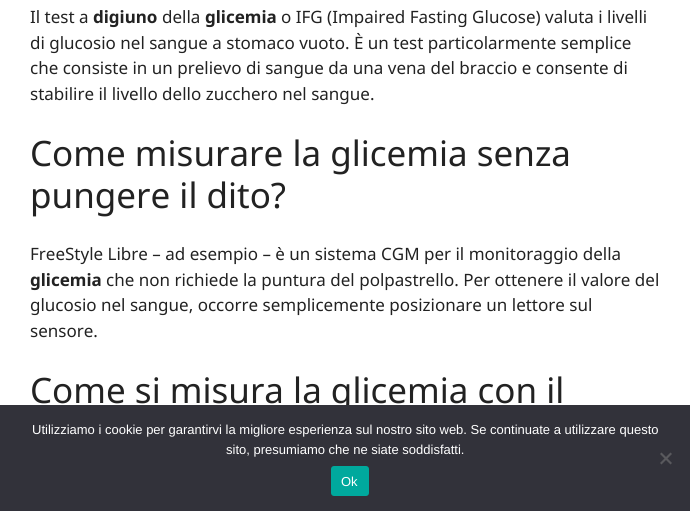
#include <cairo.h>
#include <math.h>
#include <stddef.h>

static cairo_t *c;
static void C(unsigned color){cairo_set_source_rgb(c, (color >> 16) / 255.0, (color >> 8 & 255) / 255.0, (color & 255) / 255.0);}
static void F(const char *family, double size, int italic, int bold){cairo_select_font_face(c, family, italic ? CAIRO_FONT_SLANT_ITALIC : CAIRO_FONT_SLANT_NORMAL,bold ? CAIRO_FONT_WEIGHT_BOLD : CAIRO_FONT_WEIGHT_NORMAL);cairo_set_font_size(c, size);}
static void T(double x, double y, const char *s){cairo_move_to(c, x, y);cairo_show_text(c, s);}
static void R(double x, double y, double w, double h){cairo_rectangle(c, x, y, w, h);cairo_fill(c);}
static void Q(double x, double y, double w, double h, double r){cairo_new_sub_path(c);cairo_arc(c, x + w - r, y + h - r, r, 0, M_PI / 2);cairo_arc(c, x + r, y + h - r, r, M_PI / 2, M_PI);cairo_arc(c, x + r, y + r, r, M_PI, 1.5 * M_PI);cairo_arc(c, x + w - r, y + r, r, 1.5 * M_PI, 2 * M_PI);cairo_close_path(c);}
int main(void) {
cairo_surface_t *surface = cairo_image_surface_create(CAIRO_FORMAT_RGB24, 690, 511);
c = cairo_create(surface);
cairo_font_options_t *options = cairo_font_options_create();
cairo_font_options_set_hint_metrics(options, CAIRO_HINT_METRICS_OFF);
cairo_font_options_set_hint_style(options, CAIRO_HINT_STYLE_NONE);
cairo_set_font_options(c, options);
cairo_set_miter_limit(c, 4);
C(0xffffff);
cairo_paint(c);
F("Noto Sans",17,0,0);
C(0x222222);
T(30,23,"Il test a");
F("Noto Sans",17,0,1);
T(93,23,"digiuno");
F("Noto Sans",17,0,0);
T(162,23,"della");
F("Noto Sans",17,0,1);
T(205,23,"glicemia");
F("Noto Sans",17,0,0);
T(281,23,"o IFG (Impaired Fasting Glucose) valuta i livelli");
T(30,49,"di glucosio nel sangue a stomaco vuoto. È un test particolarmente semplice");
T(30,74,"che consiste in un prelievo di sangue da una vena del braccio e consente di");
T(30,100,"stabilire il livello dello zucchero nel sangue.");
F("Noto Sans",35,0,0);
T(30,166,"Come misurare la glicemia senza");
T(30,208,"pungere il dito?");
F("Noto Sans",17,0,0);
T(30,260,"FreeStyle Libre – ad esempio – è un sistema CGM per il monitoraggio della");
F("Noto Sans",17,0,1);
T(30,286,"glicemia");
F("Noto Sans",17,0,0);
T(106,286,"che non richiede la puntura del polpastrello. Per ottenere il valore del");
T(30,311,"glucosio nel sangue, occorre semplicemente posizionare un lettore sul");
T(30,337,"sensore.");
F("Noto Sans",35,0,0);
T(30,403,"Come si misura la glicemia con il");
C(0x32323a);
R(0,405,690,106);
F("Liberation Sans",13,0,0);
C(0xffffff);
T(32,434,"Utilizziamo i cookie per garantirvi la migliore esperienza sul nostro sito web. Se continuate a utilizzare questo");
T(226,454,"sito, presumiamo che ne siate soddisfatti.");
C(0x59595d);
cairo_new_path(c);
cairo_move_to(c,670.5,452.5);
cairo_line_to(c,672,454);
cairo_line_to(c,661.5,464.5);
cairo_line_to(c,660,463);
cairo_close_path(c);
cairo_fill(c);
cairo_new_path(c);
cairo_move_to(c,660,454);
cairo_line_to(c,661.5,452.5);
cairo_line_to(c,672,463);
cairo_line_to(c,670.5,464.5);
cairo_close_path(c);
cairo_fill(c);
C(0x00a99d);
Q(331,466,38,30,3);
cairo_fill(c);
C(0xffffff);
T(341,486,"Ok");
cairo_surface_write_to_png(surface, "o.png");
cairo_font_options_destroy(options);
cairo_destroy(c);
cairo_surface_destroy(surface);
return 0;
}
